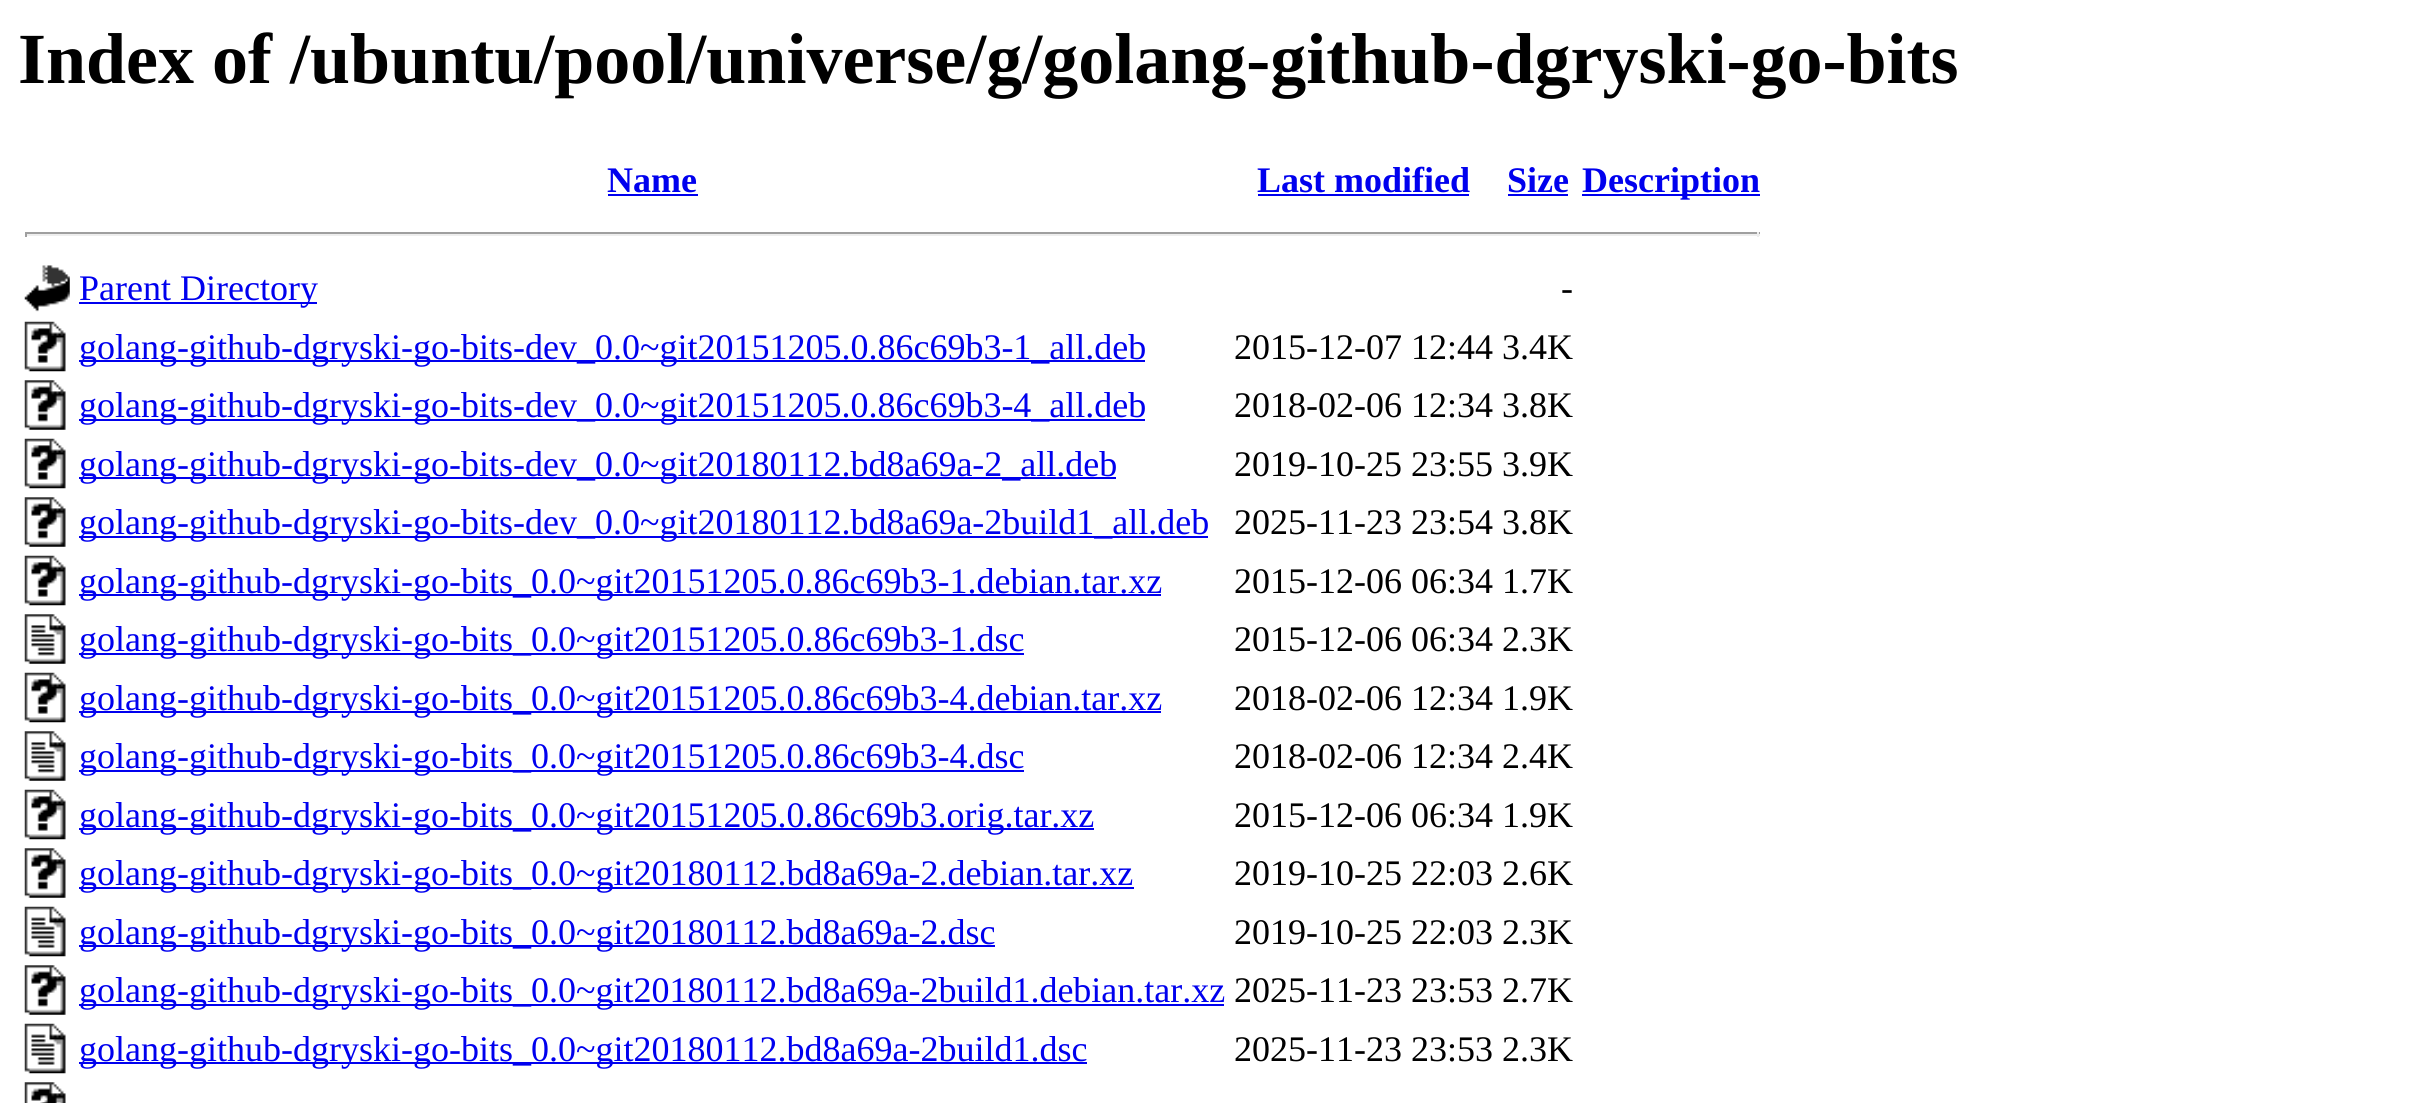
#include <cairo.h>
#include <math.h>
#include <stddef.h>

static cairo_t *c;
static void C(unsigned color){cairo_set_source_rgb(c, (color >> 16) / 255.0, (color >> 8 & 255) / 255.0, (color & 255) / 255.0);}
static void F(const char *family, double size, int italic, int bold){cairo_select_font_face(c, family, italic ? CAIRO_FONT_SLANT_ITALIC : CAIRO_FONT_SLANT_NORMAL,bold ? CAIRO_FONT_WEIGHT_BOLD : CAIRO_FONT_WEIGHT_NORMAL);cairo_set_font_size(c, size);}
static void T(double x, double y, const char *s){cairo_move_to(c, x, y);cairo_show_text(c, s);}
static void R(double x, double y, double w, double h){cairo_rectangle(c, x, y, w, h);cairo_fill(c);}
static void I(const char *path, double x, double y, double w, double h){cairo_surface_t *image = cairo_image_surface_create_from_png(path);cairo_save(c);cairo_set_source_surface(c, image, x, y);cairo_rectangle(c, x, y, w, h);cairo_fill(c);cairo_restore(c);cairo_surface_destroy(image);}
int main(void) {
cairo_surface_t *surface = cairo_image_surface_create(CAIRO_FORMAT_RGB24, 2414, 1103);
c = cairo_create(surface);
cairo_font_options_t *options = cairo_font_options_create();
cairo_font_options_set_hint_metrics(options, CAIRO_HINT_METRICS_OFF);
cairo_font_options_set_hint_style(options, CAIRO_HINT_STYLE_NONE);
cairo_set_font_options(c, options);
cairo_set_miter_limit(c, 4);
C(0xffffff);
cairo_paint(c);
F("Liberation Serif",72,0,1);
C(0x000000);
T(18,83,"Index of /ubuntu/pool/universe/g/golang-github-dgryski-go-bits");
F("Liberation Serif",36,0,1);
C(0x0000ee);
T(607,192,"Name");
R(608,194,90,2);
T(1257,192,"Last modified");
R(1258,194,211,2);
T(1507,192,"Size");
R(1508,194,60,2);
R(1582,194,178,2);
T(1582,192,"Description");
C(0x9f9f9f);
R(25,232,1735,2);
C(0xeeeeee);
R(1757,232,2,5);
R(25,234,1735,2);
C(0x9f9f9f);
R(25,232,2,5);
I("1.png",24,265,46,47);
C(0x0000ee);
R(79,302,238,2);
F("Liberation Serif",36,0,0);
T(79,300,"Parent Directory");
C(0x000000);
T(1561,300,"-");
I("2.png",24,321,42,51);
C(0x0000ee);
R(79,360,1066,2);
T(79,359,"golang-github-dgryski-go-bits-dev_0.0~git20151205.0.86c69b3-1_all.deb");
C(0x000000);
T(1234,359,"2015-12-07 12:44 3.4K");
I("3.png",24,380,42,50);
C(0x0000ee);
R(79,419,1066,2);
T(79,417,"golang-github-dgryski-go-bits-dev_0.0~git20151205.0.86c69b3-4_all.deb");
C(0x000000);
T(1234,417,"2018-02-06 12:34 3.8K");
I("2.png",24,438,42,51);
C(0x0000ee);
R(79,477,1037,2);
T(79,476,"golang-github-dgryski-go-bits-dev_0.0~git20180112.bd8a69a-2_all.deb");
C(0x000000);
T(1234,476,"2019-10-25 23:55 3.9K");
I("3.png",24,497,42,50);
C(0x0000ee);
R(79,536,1129,2);
T(79,534,"golang-github-dgryski-go-bits-dev_0.0~git20180112.bd8a69a-2build1_all.deb");
C(0x000000);
T(1234,534,"2025-11-23 23:54 3.8K");
I("4.png",24,555,42,51);
C(0x0000ee);
R(79,594,1082,2);
T(79,593,"golang-github-dgryski-go-bits_0.0~git20151205.0.86c69b3-1.debian.tar.xz");
C(0x000000);
T(1234,593,"2015-12-06 06:34 1.7K");
I("5.png",24,614,42,50);
C(0x0000ee);
R(79,653,945,2);
T(79,651,"golang-github-dgryski-go-bits_0.0~git20151205.0.86c69b3-1.dsc");
C(0x000000);
T(1234,651,"2015-12-06 06:34 2.3K");
I("2.png",24,672,42,51);
C(0x0000ee);
R(79,711,1082,2);
T(79,710,"golang-github-dgryski-go-bits_0.0~git20151205.0.86c69b3-4.debian.tar.xz");
C(0x000000);
T(1234,710,"2018-02-06 12:34 1.9K");
I("5.png",24,731,42,50);
C(0x0000ee);
R(79,770,945,2);
T(79,768,"golang-github-dgryski-go-bits_0.0~git20151205.0.86c69b3-4.dsc");
C(0x000000);
T(1234,768,"2018-02-06 12:34 2.4K");
I("2.png",24,789,42,51);
C(0x0000ee);
R(79,828,1015,2);
T(79,827,"golang-github-dgryski-go-bits_0.0~git20151205.0.86c69b3.orig.tar.xz");
C(0x000000);
T(1234,827,"2015-12-06 06:34 1.9K");
I("3.png",24,848,42,50);
C(0x0000ee);
R(79,887,1055,2);
T(79,885,"golang-github-dgryski-go-bits_0.0~git20180112.bd8a69a-2.debian.tar.xz");
C(0x000000);
T(1234,885,"2019-10-25 22:03 2.6K");
I("6.png",24,906,42,51);
C(0x0000ee);
R(79,945,916,2);
T(79,944,"golang-github-dgryski-go-bits_0.0~git20180112.bd8a69a-2.dsc");
C(0x000000);
T(1234,944,"2019-10-25 22:03 2.3K");
I("3.png",24,965,42,50);
C(0x0000ee);
R(79,1004,1145,2);
T(79,1002,"golang-github-dgryski-go-bits_0.0~git20180112.bd8a69a-2build1.debian.tar.xz");
C(0x000000);
T(1234,1002,"2025-11-23 23:53 2.7K");
I("6.png",24,1023,42,51);
C(0x0000ee);
R(79,1062,1008,2);
T(79,1061,"golang-github-dgryski-go-bits_0.0~git20180112.bd8a69a-2build1.dsc");
C(0x000000);
T(1234,1061,"2025-11-23 23:53 2.3K");
I("7.png",24,1082,42,21);
cairo_surface_write_to_png(surface, "o.png");
cairo_font_options_destroy(options);
cairo_destroy(c);
cairo_surface_destroy(surface);
return 0;
}
